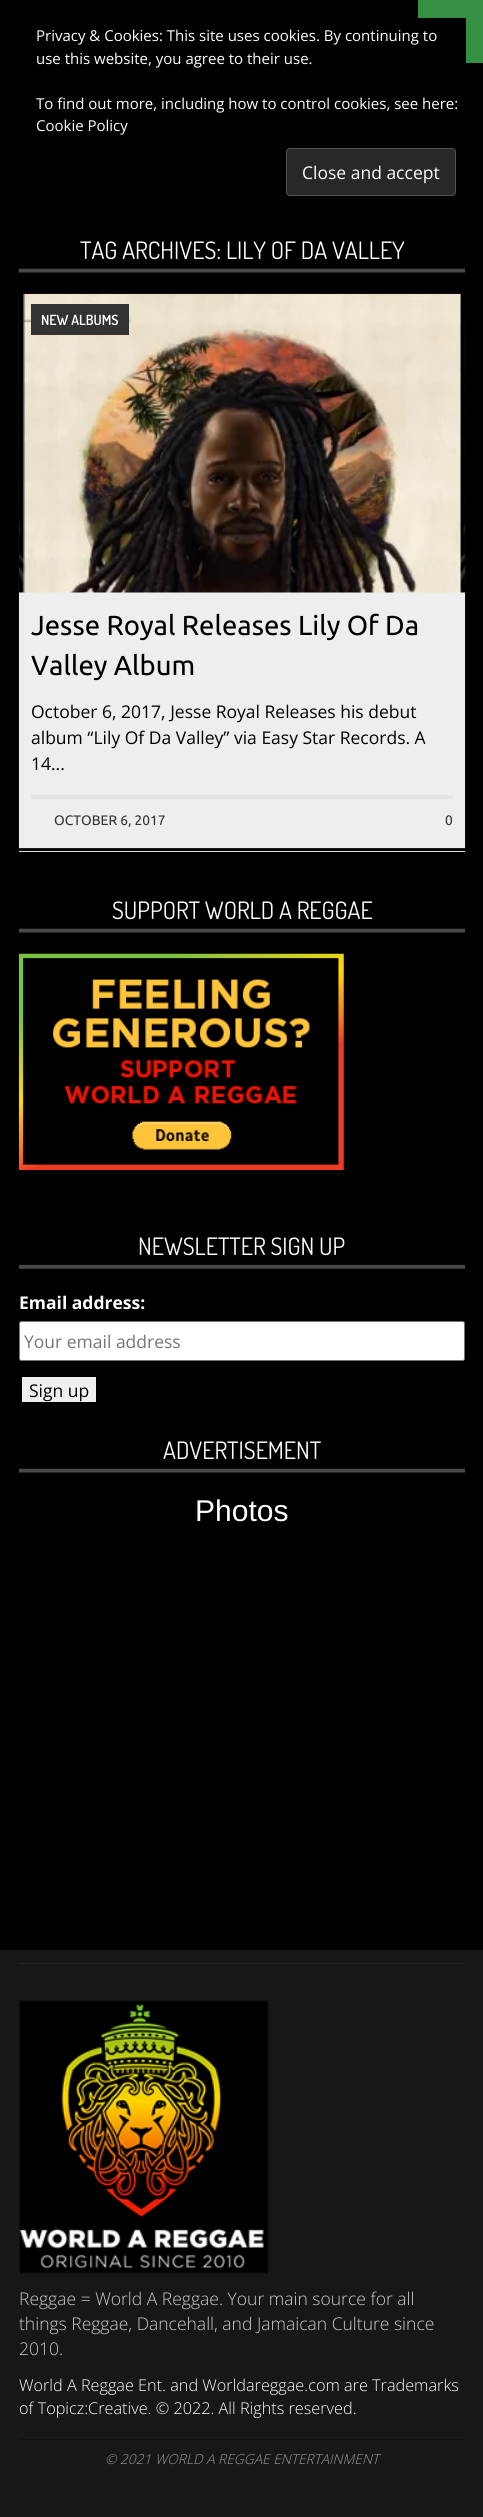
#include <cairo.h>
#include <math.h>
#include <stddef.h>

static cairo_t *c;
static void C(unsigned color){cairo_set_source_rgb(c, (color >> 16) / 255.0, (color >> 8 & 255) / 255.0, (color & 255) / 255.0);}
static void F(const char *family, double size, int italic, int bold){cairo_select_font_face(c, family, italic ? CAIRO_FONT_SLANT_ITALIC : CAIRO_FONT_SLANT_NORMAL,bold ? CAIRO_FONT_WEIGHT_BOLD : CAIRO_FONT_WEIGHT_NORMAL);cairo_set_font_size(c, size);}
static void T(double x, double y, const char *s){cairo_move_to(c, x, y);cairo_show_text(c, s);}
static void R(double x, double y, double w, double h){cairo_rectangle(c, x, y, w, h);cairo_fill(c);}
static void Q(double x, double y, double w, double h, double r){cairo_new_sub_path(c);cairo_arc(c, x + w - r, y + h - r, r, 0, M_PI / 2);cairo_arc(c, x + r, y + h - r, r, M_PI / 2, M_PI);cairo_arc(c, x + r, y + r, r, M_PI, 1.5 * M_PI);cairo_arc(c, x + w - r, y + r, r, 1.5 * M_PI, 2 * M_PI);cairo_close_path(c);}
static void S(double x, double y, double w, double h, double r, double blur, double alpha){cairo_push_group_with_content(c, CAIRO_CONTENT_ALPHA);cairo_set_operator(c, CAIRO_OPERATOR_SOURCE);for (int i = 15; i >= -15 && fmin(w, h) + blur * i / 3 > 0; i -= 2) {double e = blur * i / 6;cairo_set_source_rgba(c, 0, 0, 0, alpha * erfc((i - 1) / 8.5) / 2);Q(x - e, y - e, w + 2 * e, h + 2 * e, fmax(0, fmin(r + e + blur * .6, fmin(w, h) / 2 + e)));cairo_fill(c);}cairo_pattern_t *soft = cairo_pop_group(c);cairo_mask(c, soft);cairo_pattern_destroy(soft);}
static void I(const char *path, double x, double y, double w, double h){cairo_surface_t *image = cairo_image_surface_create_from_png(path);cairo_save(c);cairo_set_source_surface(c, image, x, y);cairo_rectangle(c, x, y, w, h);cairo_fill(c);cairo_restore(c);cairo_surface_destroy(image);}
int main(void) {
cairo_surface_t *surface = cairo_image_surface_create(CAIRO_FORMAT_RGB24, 483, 2517);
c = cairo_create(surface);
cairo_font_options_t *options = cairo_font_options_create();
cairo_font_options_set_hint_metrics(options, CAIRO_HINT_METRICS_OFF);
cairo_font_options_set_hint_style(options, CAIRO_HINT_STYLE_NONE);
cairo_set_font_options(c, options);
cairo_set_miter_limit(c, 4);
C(0x000000);
cairo_paint(c);
C(0x369041);
R(418,0,65,63);
C(0x000000);
R(418,18,48,45);
F("Open Sans",15,0,0);
C(0xffffff);
T(36,41,"Privacy & Cookies: This site uses cookies. By continuing to");
T(36,64,"use this website, you agree to their use.");
T(36,109,"To find out more, including how to control cookies, see here:");
T(36,131,"Cookie Policy");
C(0x282828);
Q(286.5,148.5,169,47,3.5);
cairo_fill_preserve(c);
C(0x535353);
cairo_set_line_width(c,1);
cairo_stroke(c);
F("Open Sans",17.5,0,0);
C(0xffffff);
T(302,179,"Close and accept");
I("1.png",18,224,447,51);
F("Dosis",24,0,0);
T(80,259,"TAG ARCHIVES: LILY OF DA VALLEY");
C(0xdddddd);
R(19,851,446,1);
C(0x727272);
S(19,295,446,554,0,.5,.3);
C(0xeeeeee);
R(19,592,446,256);
I("2.png",19,293,446,300);
C(0x333333);
R(31,304,98,31);
F("Dosis SemiBold",14,0,0);
C(0xffffff);
T(41,325,"NEW ALBUMS");
F("Ubuntu",27.5,0,0);
C(0x000000);
T(31,635,"Jesse Royal Releases Lily Of Da");
T(31,675,"Valley Album");
F("Open Sans",17.5,0,0);
T(31,718,"October 6, 2017, Jesse Royal Releases his debut");
T(31,744,"album “Lily Of Da Valley” via Easy Star Records. A");
T(31,770,"14...");
C(0xe5e5e5);
R(31,795,422,4);
F("Ubuntu",13.75,0,0);
C(0x333333);
T(54,825,"OCTOBER 6, 2017");
T(445,825,"0");
I("3.png",18,884,447,51);
F("Dosis",24,0,0);
C(0xffffff);
T(112,919,"SUPPORT WORLD A REGGAE");
I("4.png",18,953,326,217);
I("5.png",18,1220,447,51);
T(138,1255,"NEWSLETTER SIGN UP");
F("Open Sans",17.5,0,1);
T(19,1309,"Email address:");
Q(19.5,1321.5,445,39,2);
cairo_fill_preserve(c);
C(0x767676);
cairo_stroke(c);
F("Open Sans",17.5,0,0);
C(0x757575);
T(24,1348,"Your email address");
C(0xefefef);
R(22,1377,74,25);
C(0x000000);
T(29,1397,"Sign up");
I("6.png",18,1424,447,52);
F("Dosis",24,0,0);
C(0xffffff);
T(163,1459,"ADVERTISEMENT");
F("Liberation Sans",30,0,0);
T(195,1521,"Photos");
C(0x171717);
R(0,1950,483,567);
C(0x222222);
R(19,1963,446,1);
I("7.png",19,2000,250,274);
F("Open Sans Light",17.5,0,0);
C(0xcccccc);
T(19,2305,"Reggae = World A Reggae. Your main source for all");
T(19,2330,"things Reggae, Dancehall, and Jamaican Culture since");
T(19,2355,"2010.");
F("Open Sans Light",16.25,0,0);
C(0xffffff);
T(19,2391,"World A Reggae Ent. and Worldareggae.com are Trademarks");
T(19,2414,"of Topicz:Creative. © 2022. All Rights reserved.");
C(0x111111);
R(19,2439,446,1);
F("Open Sans Light",13.75,1,0);
C(0x999999);
T(105,2464,"© 2021 WORLD A REGGAE ENTERTAINMENT");
cairo_surface_write_to_png(surface, "o.png");
cairo_font_options_destroy(options);
cairo_destroy(c);
cairo_surface_destroy(surface);
return 0;
}
